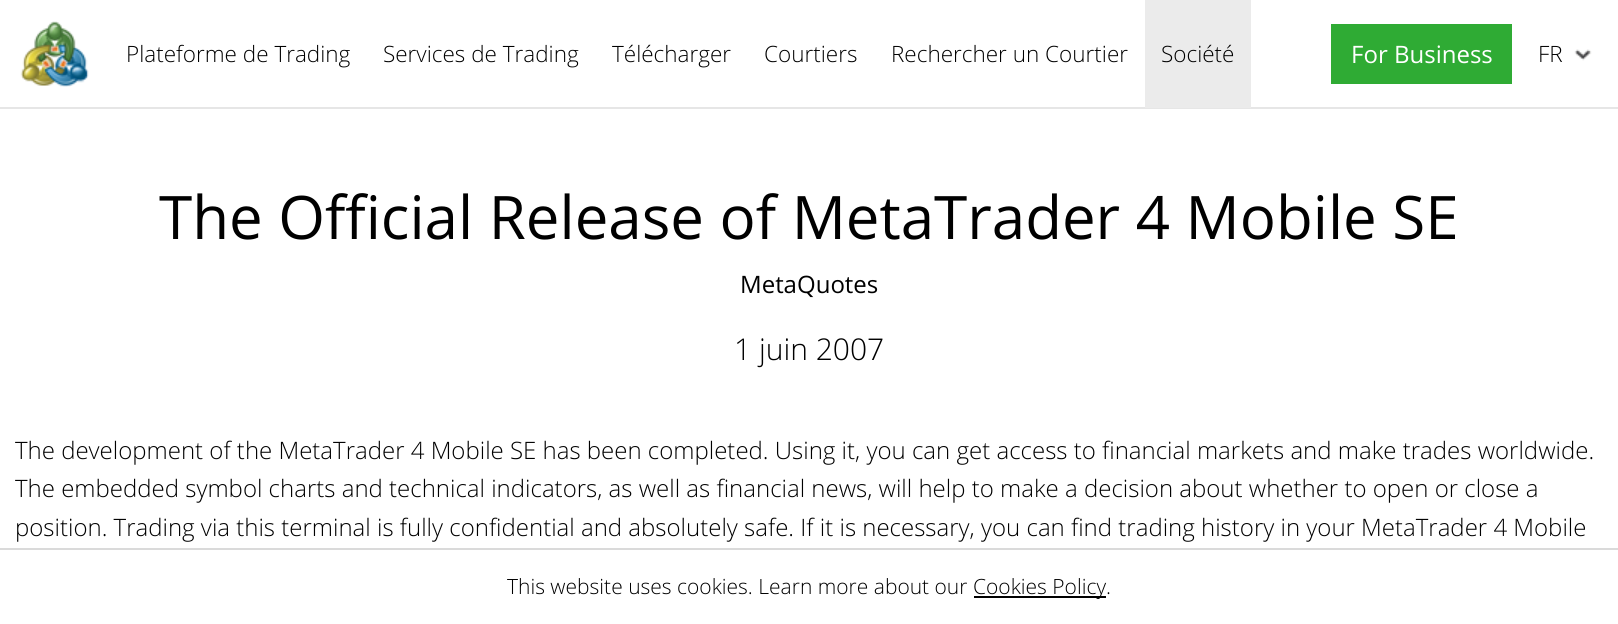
#include <cairo.h>
#include <math.h>
#include <stddef.h>

static cairo_t *c;
static void C(unsigned color){cairo_set_source_rgb(c, (color >> 16) / 255.0, (color >> 8 & 255) / 255.0, (color & 255) / 255.0);}
static void F(const char *family, double size, int italic, int bold){cairo_select_font_face(c, family, italic ? CAIRO_FONT_SLANT_ITALIC : CAIRO_FONT_SLANT_NORMAL,bold ? CAIRO_FONT_WEIGHT_BOLD : CAIRO_FONT_WEIGHT_NORMAL);cairo_set_font_size(c, size);}
static void T(double x, double y, const char *s){cairo_move_to(c, x, y);cairo_show_text(c, s);}
static void R(double x, double y, double w, double h){cairo_rectangle(c, x, y, w, h);cairo_fill(c);}
static void I(const char *path, double x, double y, double w, double h){cairo_surface_t *image = cairo_image_surface_create_from_png(path);cairo_save(c);cairo_set_source_surface(c, image, x, y);cairo_rectangle(c, x, y, w, h);cairo_fill(c);cairo_restore(c);cairo_surface_destroy(image);}
int main(void) {
cairo_surface_t *surface = cairo_image_surface_create(CAIRO_FORMAT_RGB24, 1618, 624);
c = cairo_create(surface);
cairo_font_options_t *options = cairo_font_options_create();
cairo_font_options_set_hint_metrics(options, CAIRO_HINT_METRICS_OFF);
cairo_font_options_set_hint_style(options, CAIRO_HINT_STYLE_NONE);
cairo_set_font_options(c, options);
cairo_set_miter_limit(c, 4);
C(0xffffff);
cairo_paint(c);
C(0xe6e6e6);
R(0,107,1618,2);
I("1.png",20,21,69,66);
F("Open Sans Light",22.5,0,0);
C(0x000000);
T(126,62,"Plateforme de Trading");
T(383,62,"Services de Trading");
T(612,62,"Télécharger");
T(764,62,"Courtiers");
T(891,62,"Rechercher un Courtier");
C(0xebebeb);
R(1145,0,106,108);
C(0x000000);
T(1161,62,"Société");
C(0x2fab34);
R(1331,24,181,60);
F("Open Sans",24,0,0);
C(0xffffff);
T(1351,63,"For Business");
F("Open Sans Light",22.5,0,0);
C(0x000000);
T(1538,62,"FR");
I("2.png",1574,49,18,12);
F("Open Sans",60,0,0);
T(159,239,"The Official Release of MetaTrader 4 Mobile SE");
F("Open Sans",24,0,0);
T(740,293,"MetaQuotes");
F("Open Sans Light",30,0,0);
T(734,360,"1 juin 2007");
F("Open Sans Light",24,0,0);
T(15,459,"The development of the MetaTrader 4 Mobile SE has been completed. Using it, you can get access to financial markets and make trades worldwide.");
T(15,497,"The embedded symbol charts and technical indicators, as well as financial news, will help to make a decision about whether to open or close a");
T(15,536,"position. Trading via this terminal is fully confidential and absolutely safe. If it is necessary, you can find trading history in your MetaTrader 4 Mobile");
C(0xdadada);
R(0,548,1618,2);
F("Open Sans Light",21,0,0);
C(0x000000);
T(507,594,"This website uses cookies. Learn more about our");
R(974,596,132,2);
T(973,594,"Cookies Policy.");
cairo_surface_write_to_png(surface, "o.png");
cairo_font_options_destroy(options);
cairo_destroy(c);
cairo_surface_destroy(surface);
return 0;
}
